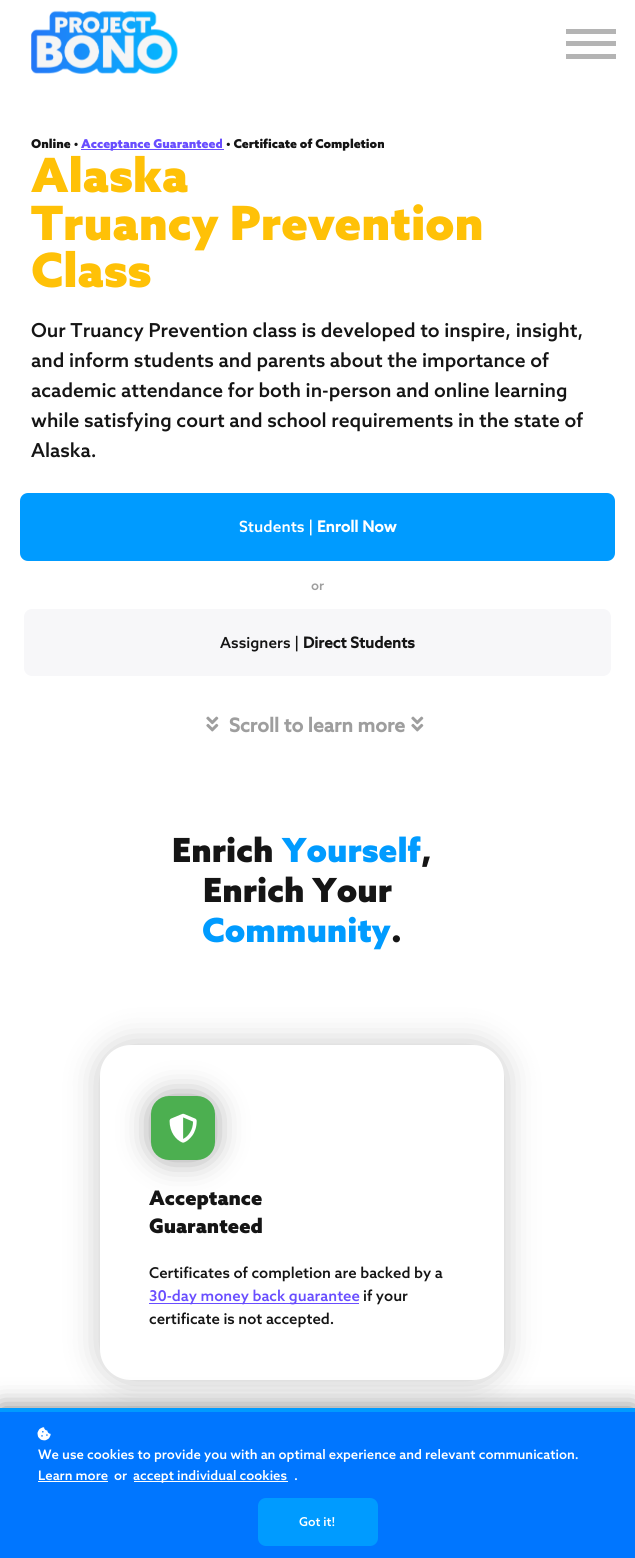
#include <cairo.h>
#include <math.h>
#include <stddef.h>

static cairo_t *c;
static void C(unsigned color){cairo_set_source_rgb(c, (color >> 16) / 255.0, (color >> 8 & 255) / 255.0, (color & 255) / 255.0);}
static void F(const char *family, double size, int italic, int bold){cairo_select_font_face(c, family, italic ? CAIRO_FONT_SLANT_ITALIC : CAIRO_FONT_SLANT_NORMAL,bold ? CAIRO_FONT_WEIGHT_BOLD : CAIRO_FONT_WEIGHT_NORMAL);cairo_set_font_size(c, size);}
static void T(double x, double y, const char *s){cairo_move_to(c, x, y);cairo_show_text(c, s);}
static void R(double x, double y, double w, double h){cairo_rectangle(c, x, y, w, h);cairo_fill(c);}
static void Q(double x, double y, double w, double h, double r){cairo_new_sub_path(c);cairo_arc(c, x + w - r, y + h - r, r, 0, M_PI / 2);cairo_arc(c, x + r, y + h - r, r, M_PI / 2, M_PI);cairo_arc(c, x + r, y + r, r, M_PI, 1.5 * M_PI);cairo_arc(c, x + w - r, y + r, r, 1.5 * M_PI, 2 * M_PI);cairo_close_path(c);}
static void S(double x, double y, double w, double h, double r, double blur, double alpha){cairo_push_group_with_content(c, CAIRO_CONTENT_ALPHA);cairo_set_operator(c, CAIRO_OPERATOR_SOURCE);for (int i = 15; i >= -15 && fmin(w, h) + blur * i / 3 > 0; i -= 2) {double e = blur * i / 6;cairo_set_source_rgba(c, 0, 0, 0, alpha * erfc((i - 1) / 8.5) / 2);Q(x - e, y - e, w + 2 * e, h + 2 * e, fmax(0, fmin(r + e + blur * .6, fmin(w, h) / 2 + e)));cairo_fill(c);}cairo_pattern_t *soft = cairo_pop_group(c);cairo_mask(c, soft);cairo_pattern_destroy(soft);}
static void I(const char *path, double x, double y, double w, double h){cairo_surface_t *image = cairo_image_surface_create_from_png(path);cairo_save(c);cairo_set_source_surface(c, image, x, y);cairo_rectangle(c, x, y, w, h);cairo_fill(c);cairo_restore(c);cairo_surface_destroy(image);}
int main(void) {
cairo_surface_t *surface = cairo_image_surface_create(CAIRO_FORMAT_RGB24, 635, 1558);
c = cairo_create(surface);
cairo_font_options_t *options = cairo_font_options_create();
cairo_font_options_set_hint_metrics(options, CAIRO_HINT_METRICS_OFF);
cairo_font_options_set_hint_style(options, CAIRO_HINT_STYLE_NONE);
cairo_set_font_options(c, options);
cairo_set_miter_limit(c, 4);
C(0xffffff);
cairo_paint(c);
I("1.png",31,10,147,64);
C(0xb4b4b4);
R(566,54,50,5);
R(566,29,50,5);
R(566,41,50,5);
F("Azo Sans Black",12.25,0,0);
C(0x151515);
T(31,148,"Online •");
C(0x694eff);
R(81,149,143,1);
T(81,148,"Acceptance Guaranteed");
C(0x151515);
T(226,148,"• Certificate of Completion");
F("Azo Sans Black",47.25,0,0);
C(0xffc107);
T(31,192,"Alaska");
T(31,240,"Truancy Prevention");
T(31,287,"Class");
F("Azo Sans Medium",19.25,0,0);
C(0x151515);
T(31,337,"Our Truancy Prevention class is developed to inspire, insight,");
T(31,367,"and inform students and parents about the importance of");
T(31,397,"academic attendance for both in-person and online learning");
T(31,427,"while satisfying court and school requirements in the state of");
T(31,457,"Alaska.");
C(0x009bff);
Q(20,493,595,68,8);
cairo_fill(c);
F("Azo Sans Medium",15.5,0,0);
C(0xffffff);
T(239,532,"Students |");
F("Azo Sans",15.5,0,1);
T(317,532,"Enroll Now");
F("Azo Sans Medium",13.1,0,0);
C(0x9e9e9e);
T(311,590,"or");
C(0xf7f7f9);
Q(24,609,587,67,8);
cairo_fill(c);
F("Azo Sans Medium",15.25,0,0);
C(0x151515);
T(220,648,"Assigners |");
F("Azo Sans",15.25,0,1);
T(303,648,"Direct Students");
I("2.png",206,716,13,16);
F("Azo Sans",19.25,0,1);
C(0x9e9e9e);
T(229,732,"Scroll to learn more");
I("2.png",411,716,13,16);
F("Azo Sans Black",33.25,0,0);
C(0x151515);
T(172,862,"Enrich");
C(0x009bff);
T(282,862,"Yourself");
C(0x151515);
T(421,862,",");
T(203,902,"Enrich Your");
C(0x009bff);
T(202,942,"Community");
C(0x151515);
T(391,942,".");
C(0x151515);
S(96,1041,412,343,35,15.5,.2);
C(0xffffff);
Q(100,1045,404,335,31);
cairo_fill(c);
C(0x9e9e9e);
S(151,1096,64,64,18,14.5,1);
C(0x4caf50);
Q(159.5,1104.5,47,47,9.5);
cairo_fill_preserve(c);
cairo_set_line_width(c,17);
cairo_stroke(c);
I("3.png",169,1113,28,30);
F("Azo Sans Black",20,0,0);
C(0x151515);
T(149,1205,"Acceptance");
T(149,1233,"Guaranteed");
F("Azo Sans Medium",14.9,0,0);
T(149,1278,"Certificates of completion are backed by a");
C(0x694eff);
R(149,1303,210,1);
T(149,1301,"30-day money back guarantee");
C(0x151515);
T(363,1301,"if your");
T(149,1324,"certificate is not accepted.");
C(0x000000);
S(0,1408,635,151,0,12.5,.5);
C(0x0076ff);
R(0,1412,635,146);
C(0x009bff);
R(0,1408,635,4);
I("4.png",37,1427,14,14);
F("Azo Sans Medium",13.1,0,0);
C(0xffffff);
T(38,1459,"We use cookies to provide you with an optimal experience and relevant communication.");
T(38,1480,"Learn more");
R(38,1481,70,1);
T(114,1480,"or");
R(134,1481,154,1);
T(133,1480,"accept individual cookies");
T(294,1480,".");
C(0x009bff);
Q(258,1498,120,48,8);
cairo_fill(c);
F("Azo Sans Medium",12.25,0,0);
C(0xffffff);
T(299,1526,"Got it!");
cairo_surface_write_to_png(surface, "o.png");
cairo_font_options_destroy(options);
cairo_destroy(c);
cairo_surface_destroy(surface);
return 0;
}
